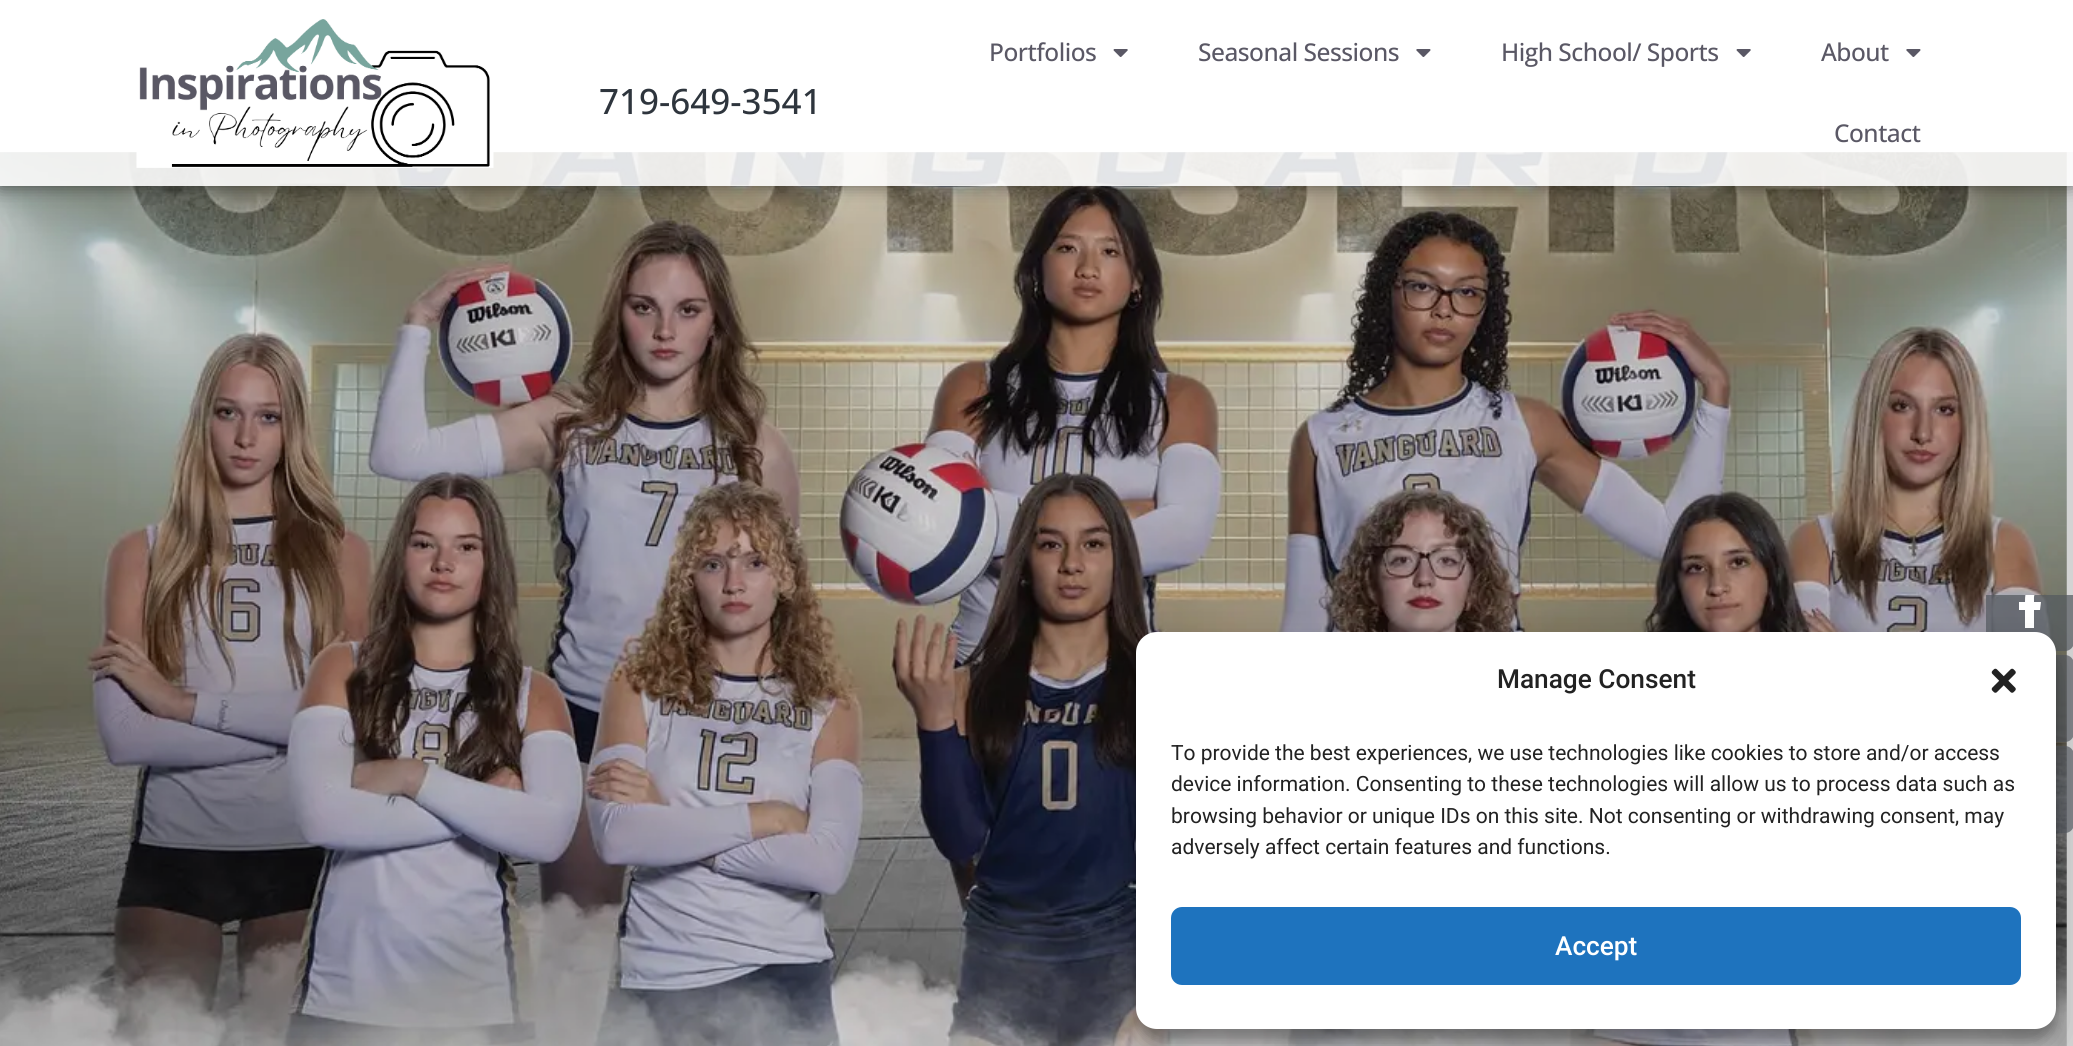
#include <cairo.h>
#include <math.h>
#include <stddef.h>

static cairo_t *c;
static void C(unsigned color){cairo_set_source_rgb(c, (color >> 16) / 255.0, (color >> 8 & 255) / 255.0, (color & 255) / 255.0);}
static void F(const char *family, double size, int italic, int bold){cairo_select_font_face(c, family, italic ? CAIRO_FONT_SLANT_ITALIC : CAIRO_FONT_SLANT_NORMAL,bold ? CAIRO_FONT_WEIGHT_BOLD : CAIRO_FONT_WEIGHT_NORMAL);cairo_set_font_size(c, size);}
static void T(double x, double y, const char *s){cairo_move_to(c, x, y);cairo_show_text(c, s);}
static void L(double x, double y, const char *s, double letter, double word){cairo_move_to(c, x, y);while (*s) {char ch[5] = {0};int n = 0;do ch[n++] = *s++; while ((*s & 0xC0) == 0x80);cairo_show_text(c, ch);cairo_rel_move_to(c, letter + word * (*ch == ' '), 0);}}
static void R(double x, double y, double w, double h){cairo_rectangle(c, x, y, w, h);cairo_fill(c);}
static void Q(double x, double y, double w, double h, double r){cairo_new_sub_path(c);cairo_arc(c, x + w - r, y + h - r, r, 0, M_PI / 2);cairo_arc(c, x + r, y + h - r, r, M_PI / 2, M_PI);cairo_arc(c, x + r, y + r, r, M_PI, 1.5 * M_PI);cairo_arc(c, x + w - r, y + r, r, 1.5 * M_PI, 2 * M_PI);cairo_close_path(c);}
static void S(double x, double y, double w, double h, double r, double blur, double alpha){cairo_push_group_with_content(c, CAIRO_CONTENT_ALPHA);cairo_set_operator(c, CAIRO_OPERATOR_SOURCE);for (int i = 15; i >= -15 && fmin(w, h) + blur * i / 3 > 0; i -= 2) {double e = blur * i / 6;cairo_set_source_rgba(c, 0, 0, 0, alpha * erfc((i - 1) / 8.5) / 2);Q(x - e, y - e, w + 2 * e, h + 2 * e, fmax(0, fmin(r + e + blur * .6, fmin(w, h) / 2 + e)));cairo_fill(c);}cairo_pattern_t *soft = cairo_pop_group(c);cairo_mask(c, soft);cairo_pattern_destroy(soft);}
static void I(const char *path, double x, double y, double w, double h){cairo_surface_t *image = cairo_image_surface_create_from_png(path);cairo_save(c);cairo_set_source_surface(c, image, x, y);cairo_rectangle(c, x, y, w, h);cairo_fill(c);cairo_restore(c);cairo_surface_destroy(image);}
int main(void) {
cairo_surface_t *surface = cairo_image_surface_create(CAIRO_FORMAT_RGB24, 2073, 1046);
c = cairo_create(surface);
cairo_font_options_t *options = cairo_font_options_create();
cairo_font_options_set_hint_metrics(options, CAIRO_HINT_METRICS_OFF);
cairo_font_options_set_hint_style(options, CAIRO_HINT_STYLE_NONE);
cairo_set_font_options(c, options);
cairo_set_miter_limit(c, 4);
C(0xffffff);
cairo_paint(c);
C(0xd3d3d3);
R(0,152,2073,894);
I("4.png",0,152,2067,894);
cairo_save(c);
cairo_set_fill_rule(c,CAIRO_FILL_RULE_EVEN_ODD);
cairo_new_path(c);
cairo_move_to(c,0,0);
cairo_line_to(c,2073,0);
cairo_line_to(c,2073,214);
cairo_line_to(c,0,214);
cairo_close_path(c);
cairo_move_to(c,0,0);
cairo_line_to(c,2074,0);
cairo_line_to(c,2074,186);
cairo_line_to(c,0,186);
cairo_close_path(c);
cairo_clip(c);
C(0x000000);
S(0,0,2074,186,0,9,.5);
cairo_restore(c);
cairo_set_source_rgba(c,1,1,1,0.88);
R(0,152,2073,34);
I("1.png",136,19,358,149);
F("Open Sans Medium",35,0,0);
C(0x2e353d);
T(599,114,"719-649-3541");
F("Open Sans Medium",24.5,0,0);
C(0x5a5865);
L(989,61,"Portfolios",-.5,0);
I("2.png",1113,49,15,8);
L(1198,61,"Seasonal Sessions",-.5,0);
I("3.png",1416,49,15,8);
L(1501,61,"High School/ Sports",-.5,0);
I("2.png",1736,49,15,8);
L(1821,61,"About",-.5,0);
I("3.png",1906,49,15,8);
L(1834,142,"Contact",-.5,0);
cairo_set_source_rgba(c,0.329,0.349,0.373,0.71);
cairo_new_path(c);
cairo_move_to(c,1986,595);
cairo_line_to(c,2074,595);
cairo_line_to(c,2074,642);
cairo_curve_to(c,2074,647,2070,651,2065,651);
cairo_line_to(c,1995,651);
cairo_curve_to(c,1990,651,1986,647,1986,642);
cairo_close_path(c);
cairo_fill(c);
cairo_save(c);
cairo_rectangle(c,1986,595,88,238);
cairo_clip(c);
C(0xffffff);
cairo_new_path(c);
cairo_move_to(c,2040,610);
cairo_line_to(c,2034,610);
cairo_line_to(c,2034,628);
cairo_line_to(c,2025,628);
cairo_line_to(c,2025,610);
cairo_line_to(c,2019,610);
cairo_line_to(c,2019,602);
cairo_line_to(c,2025,602);
cairo_curve_to(c,2025,589,2027,585,2041,587);
cairo_line_to(c,2041,593);
cairo_curve_to(c,2033,593,2034,595,2034,602);
cairo_line_to(c,2041,602);
cairo_close_path(c);
cairo_fill(c);
cairo_restore(c);
cairo_set_source_rgba(c,0.329,0.349,0.373,0.66);
Q(1986,655,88,87,9);
cairo_fill(c);
Q(1986,746,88,87,9);
cairo_fill(c);
C(0x000000);
S(1136,642,920,398,21,5,.23);
S(1136,649,920,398,21,17.5,.19);
C(0xffffff);
Q(1136,632,920,397,21);
cairo_fill(c);
F("Roboto Medium",26.25,0,0);
C(0x222222);
T(1497,688,"Manage Consent");
I("5.png",1991,668,25,25);
F("Roboto",21,0,0);
T(1171,760,"To provide the best experiences, we use technologies like cookies to store and/or access");
T(1171,791,"device information. Consenting to these technologies will allow us to process data such as");
T(1171,823,"browsing behavior or unique IDs on this site. Not consenting or withdrawing consent, may");
T(1171,854,"adversely affect certain features and functions.");
C(0x1e73be);
Q(1172,908,848,76,10);
cairo_fill_preserve(c);
cairo_stroke(c);
F("Roboto Medium",26.25,0,0);
C(0xffffff);
T(1555,955,"Accept");
cairo_surface_write_to_png(surface, "o.png");
cairo_font_options_destroy(options);
cairo_destroy(c);
cairo_surface_destroy(surface);
return 0;
}
